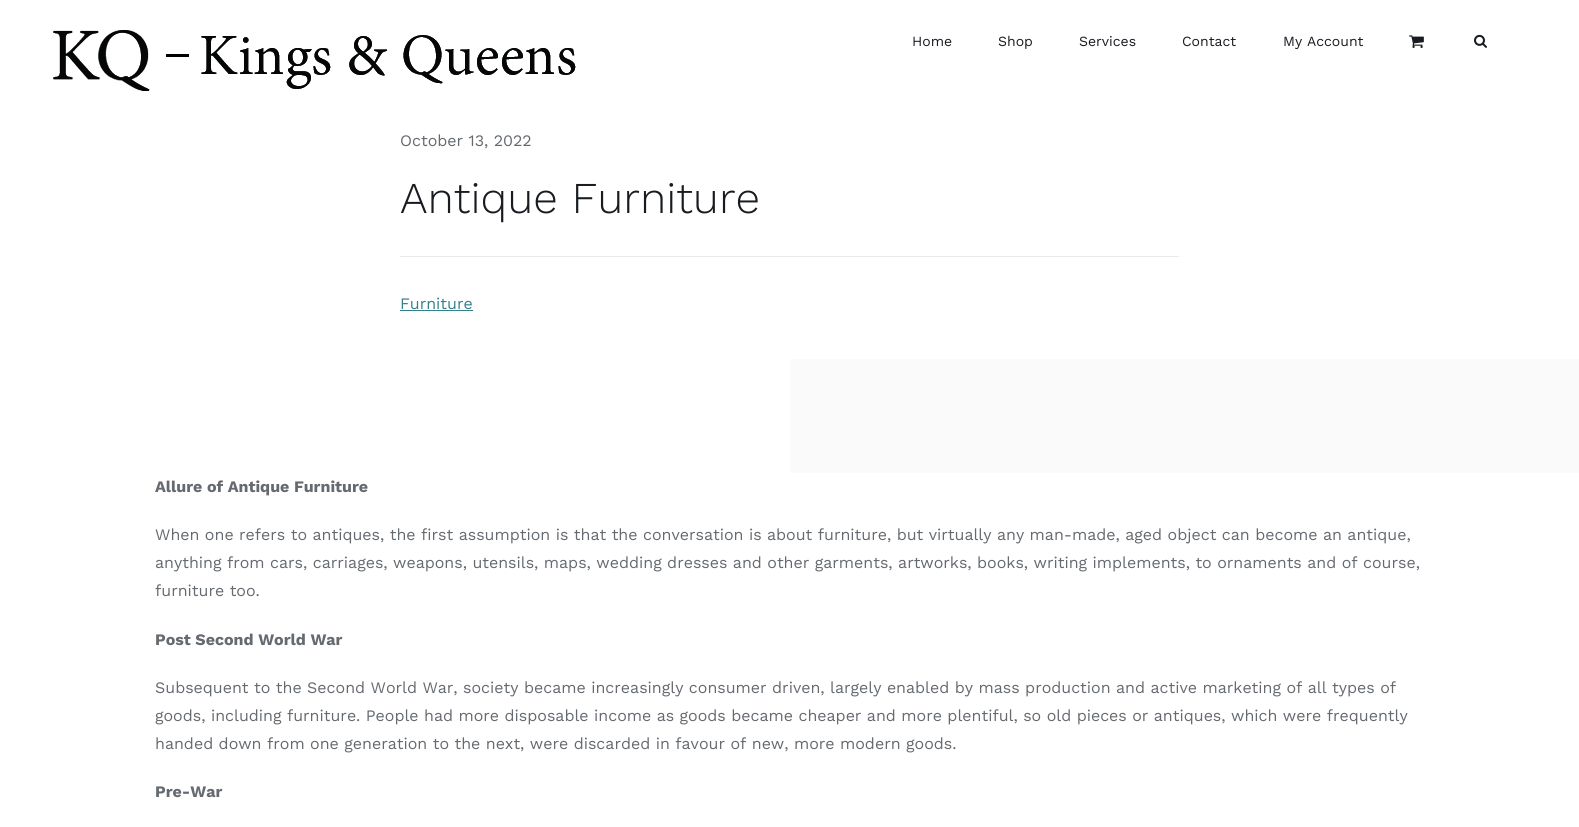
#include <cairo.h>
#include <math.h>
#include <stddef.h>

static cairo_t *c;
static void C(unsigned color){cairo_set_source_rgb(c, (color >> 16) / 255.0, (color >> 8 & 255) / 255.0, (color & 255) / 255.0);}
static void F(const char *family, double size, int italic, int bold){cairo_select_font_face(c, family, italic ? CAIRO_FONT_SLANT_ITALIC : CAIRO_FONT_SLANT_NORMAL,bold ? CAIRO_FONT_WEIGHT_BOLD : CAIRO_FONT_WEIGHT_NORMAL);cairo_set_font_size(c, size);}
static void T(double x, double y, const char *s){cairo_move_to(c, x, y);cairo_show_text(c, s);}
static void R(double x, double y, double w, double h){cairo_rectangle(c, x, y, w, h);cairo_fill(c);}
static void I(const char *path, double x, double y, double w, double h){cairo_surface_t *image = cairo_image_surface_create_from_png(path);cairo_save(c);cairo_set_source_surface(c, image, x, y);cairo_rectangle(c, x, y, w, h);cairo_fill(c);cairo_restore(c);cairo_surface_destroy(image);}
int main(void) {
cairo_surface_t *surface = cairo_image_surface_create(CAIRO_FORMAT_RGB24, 1579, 827);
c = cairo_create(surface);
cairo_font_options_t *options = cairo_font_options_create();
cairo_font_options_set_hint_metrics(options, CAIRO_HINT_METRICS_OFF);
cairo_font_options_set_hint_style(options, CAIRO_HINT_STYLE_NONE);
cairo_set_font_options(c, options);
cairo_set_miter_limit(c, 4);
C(0xffffff);
cairo_paint(c);
I("1.png",53,30,523,61);
F("Work Sans",14,0,0);
C(0x181b20);
T(912,46,"Home");
T(998,46,"Shop");
T(1079,46,"Services");
T(1182,46,"Contact");
T(1283,46,"My Account");
I("2.png",1409,35,15,13);
I("3.png",1474,34,13,14);
F("Work Sans",16,0,0);
C(0x656a70);
T(400,146,"October 13, 2022");
F("Work Sans Light",44,0,0);
C(0x181b20);
T(400,213,"Antique Furniture");
C(0xeaeaeb);
R(400,256,779,1);
F("Work Sans",16,0,0);
C(0x33808a);
T(400,309,"Furniture");
R(400,310,73,1);
C(0xfafafa);
R(790,359,789,114);
F("Work Sans",16,0,1);
C(0x656a70);
T(155,492,"Allure of Antique Furniture");
F("Work Sans",16,0,0);
T(155,540,"When one refers to antiques, the first assumption is that the conversation is about furniture, but virtually any man-made, aged object can become an antique,");
T(155,568,"anything from cars, carriages, weapons, utensils, maps, wedding dresses and other garments, artworks, books, writing implements, to ornaments and of course,");
T(155,596,"furniture too.");
F("Work Sans",16,0,1);
T(155,645,"Post Second World War");
F("Work Sans",16,0,0);
T(155,693,"Subsequent to the Second World War, society became increasingly consumer driven, largely enabled by mass production and active marketing of all types of");
T(155,721,"goods, including furniture. People had more disposable income as goods became cheaper and more plentiful, so old pieces or antiques, which were frequently");
T(155,749,"handed down from one generation to the next, were discarded in favour of new, more modern goods.");
F("Work Sans",16,0,1);
T(155,797,"Pre-War");
cairo_surface_write_to_png(surface, "o.png");
cairo_font_options_destroy(options);
cairo_destroy(c);
cairo_surface_destroy(surface);
return 0;
}
